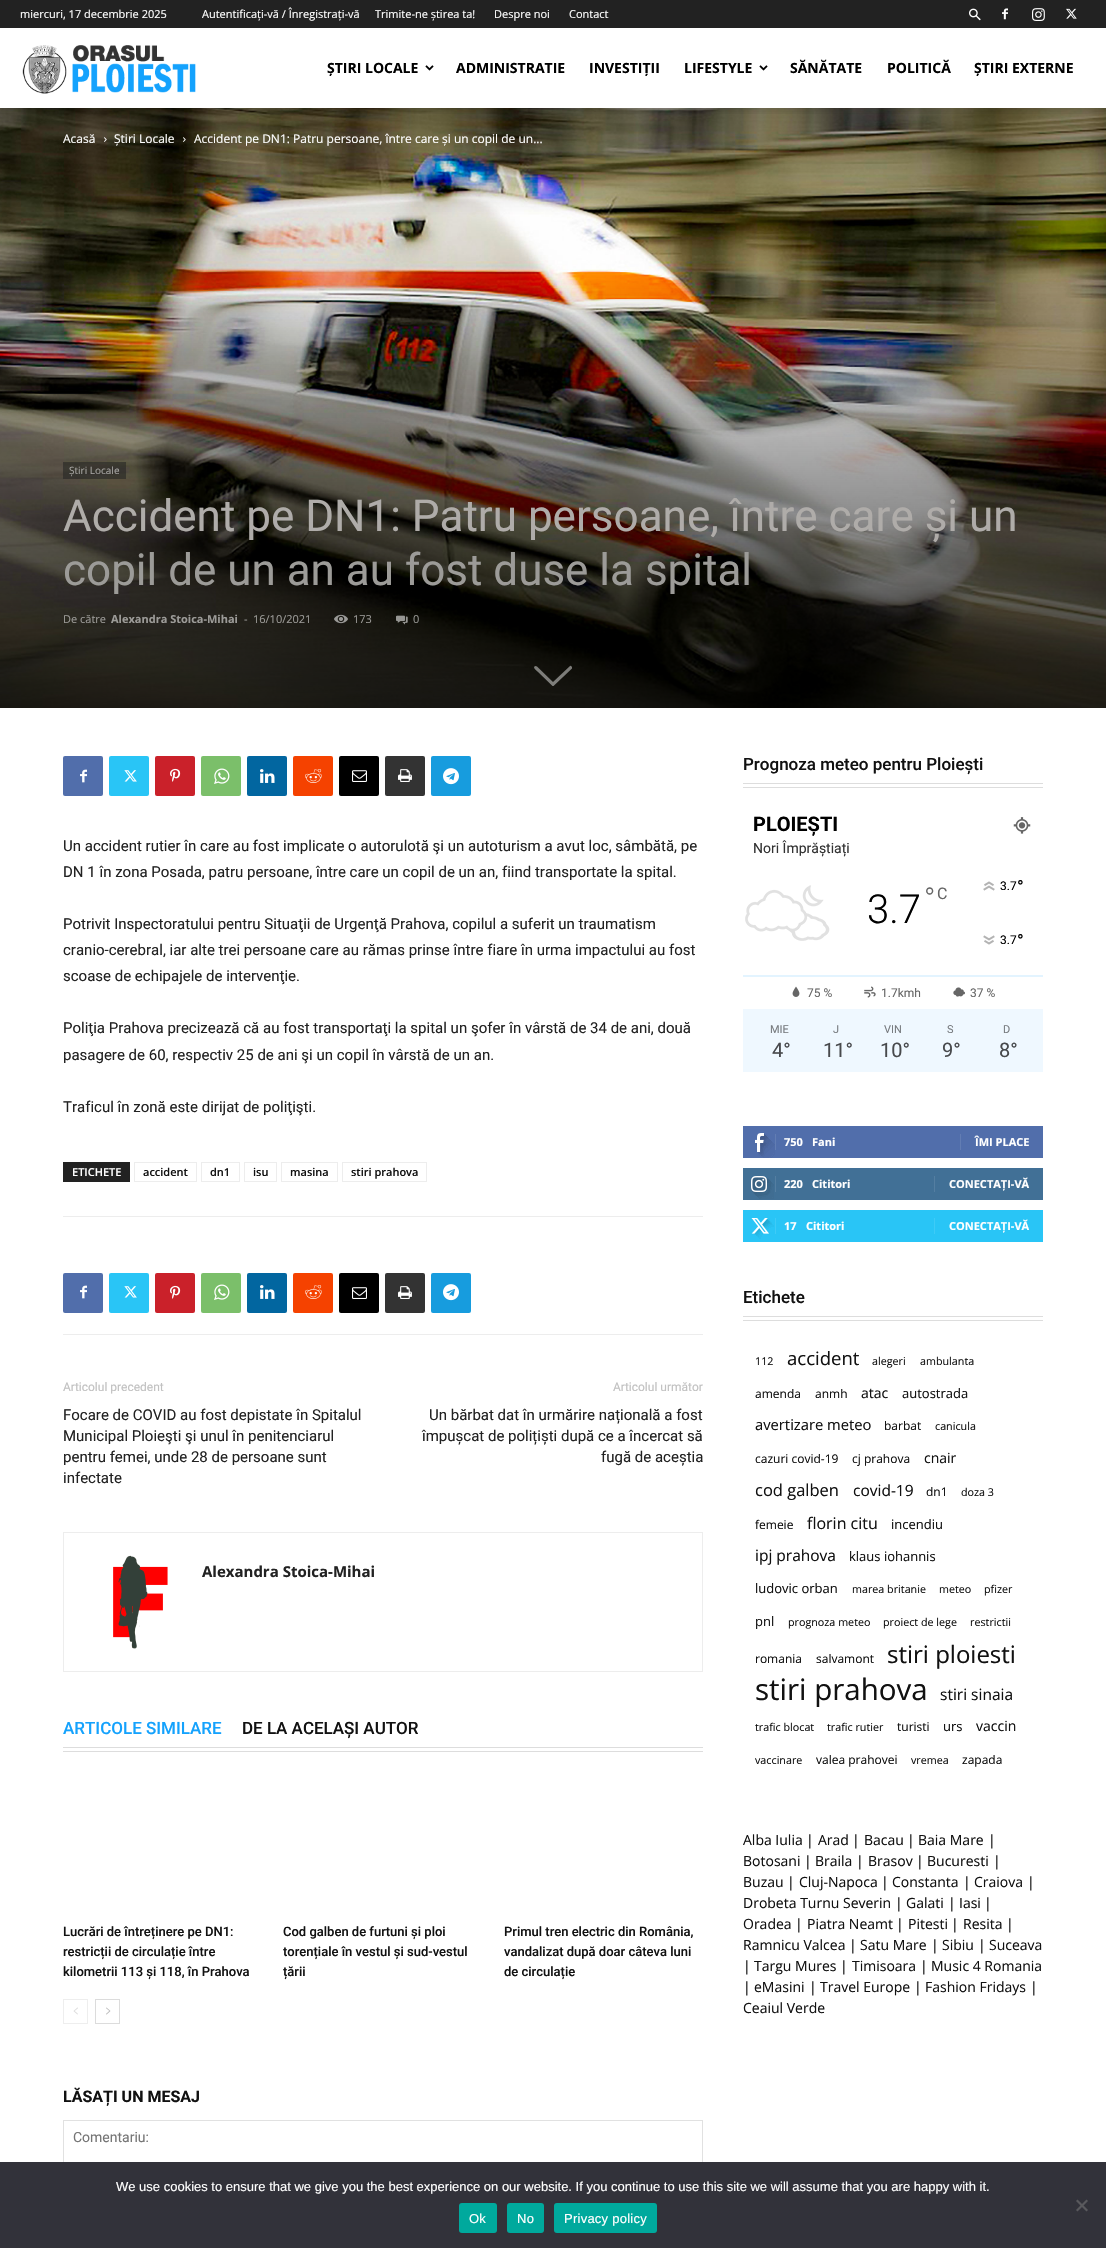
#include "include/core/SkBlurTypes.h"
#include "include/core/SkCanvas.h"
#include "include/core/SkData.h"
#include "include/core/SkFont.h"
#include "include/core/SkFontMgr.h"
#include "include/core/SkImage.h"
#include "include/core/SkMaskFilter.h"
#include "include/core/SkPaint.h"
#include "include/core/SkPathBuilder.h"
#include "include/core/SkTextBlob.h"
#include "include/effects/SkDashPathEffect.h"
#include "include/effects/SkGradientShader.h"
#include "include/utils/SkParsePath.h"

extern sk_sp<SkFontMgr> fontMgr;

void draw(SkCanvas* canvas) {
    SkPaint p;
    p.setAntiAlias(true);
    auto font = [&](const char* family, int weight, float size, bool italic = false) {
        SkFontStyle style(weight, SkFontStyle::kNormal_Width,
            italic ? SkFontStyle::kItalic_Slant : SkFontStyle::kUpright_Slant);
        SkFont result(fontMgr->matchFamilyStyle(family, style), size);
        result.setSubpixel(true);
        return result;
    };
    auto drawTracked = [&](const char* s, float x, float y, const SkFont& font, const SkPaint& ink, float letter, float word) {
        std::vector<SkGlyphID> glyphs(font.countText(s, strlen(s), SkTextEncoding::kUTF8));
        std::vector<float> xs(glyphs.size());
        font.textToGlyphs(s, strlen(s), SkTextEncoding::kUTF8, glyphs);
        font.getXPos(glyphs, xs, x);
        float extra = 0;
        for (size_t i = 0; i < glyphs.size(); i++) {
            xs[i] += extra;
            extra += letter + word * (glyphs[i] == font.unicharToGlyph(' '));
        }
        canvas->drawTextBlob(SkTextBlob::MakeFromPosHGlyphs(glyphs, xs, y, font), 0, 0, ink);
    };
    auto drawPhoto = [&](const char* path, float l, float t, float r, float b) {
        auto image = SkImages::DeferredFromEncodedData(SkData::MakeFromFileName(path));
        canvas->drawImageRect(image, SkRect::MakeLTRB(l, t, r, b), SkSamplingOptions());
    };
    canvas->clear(0xFFFFFFFF);
    p.setColor(0xFF222222);
    canvas->drawRect(SkRect::MakeLTRB(0, 0, 1106, 28), p);
    auto font1 = font("Open Sans", 400, 11);
    p.setColor(0xFFFFFFFF);
    {
        const struct { const char* s; float x, y; } items[] = {
            {"miercuri, 17 decembrie 2025", 20, 18},
            {"Autentificați-vă / Înregistrați-vă", 202, 18},
            {"Trimite-ne știrea ta!", 375, 18},
            {"Despre noi", 494, 18},
            {"Contact", 569, 18},
        };
        for (auto [s, x, y] : items) {
            canvas->drawString(s, x, y, font1, p);
        }
    }
    drawPhoto("media/1.png", 969, 8, 981, 21);
    drawPhoto("media/2.png", 1002, 8, 1008, 20);
    drawPhoto("media/3.png", 1032, 8, 1045, 21);
    drawPhoto("media/4.png", 1066, 8, 1077, 19);
    drawPhoto("media/5.png", 22, 45, 196, 94);
    auto font2 = font("Open Sans", 700, 14);
    p.setColor(0xFF000000);
    canvas->drawString("ȘTIRI LOCALE", 327, 73, font2, p);
    drawPhoto("media/6.png", 425, 65, 434, 71);
    {
        const struct { const char* s; float x, y; } items[] = {
            {"ADMINISTRATIE", 456, 73},
            {"INVESTIȚII", 589, 73},
            {"LIFESTYLE", 684, 73},
        };
        for (auto [s, x, y] : items) {
            canvas->drawString(s, x, y, font2, p);
        }
    }
    drawPhoto("media/6.png", 759, 65, 768, 71);
    {
        const struct { const char* s; float x, y; } items[] = {
            {"SĂNĂTATE", 790, 73},
            {"POLITICĂ", 887, 73},
            {"ȘTIRI EXTERNE", 974, 73},
        };
        for (auto [s, x, y] : items) {
            canvas->drawString(s, x, y, font2, p);
        }
    }
    drawPhoto("media/8.png", 0, 108, 1106, 708);
    drawPhoto("media/7.png", 0, 108, 1106, 114);
    auto font3 = font("Open Sans", 400, 12);
    p.setColor(0xFFFFFFFF);
    canvas->drawString("Acasă", 63, 143, font3, p);
    drawPhoto("media/9.png", 104, 137, 107, 142);
    canvas->drawString("Știri Locale", 114, 143, font3, p);
    drawPhoto("media/10.png", 183, 137, 186, 142);
    canvas->drawString("Accident pe DN1: Patru persoane, între care și un copil de un...", 194, 143, font3, p);
    p.setColor(0x8F222222);
    canvas->drawRect(SkRect::MakeLTRB(63, 462, 126, 479), p);
    auto font4 = font("Open Sans", 400, 10);
    p.setColor(0xFFA7A6A3);
    canvas->drawString("Știri Locale", 69, 474, font4, p);
    auto font5 = font("Roboto", 400, 44);
    p.setColor(0xFFAFACA9);
    canvas->drawString("Accident pe DN1: Patru persoane, între care și un", 63, 531, font5, p);
    p.setColor(0xFF9C9B98);
    canvas->drawString("copil de un an au fost duse la spital", 63, 585, font5, p);
    canvas->drawString("De către", 63, 623, font1, p);
    auto font6 = font("Open Sans", 700, 11);
    canvas->drawString("Alexandra Stoica-Mihai", 111, 623, font6, p);
    canvas->drawString("-", 244, 623, font1, p);
    canvas->drawString("16/10/2021", 253, 623, font1, p);
    drawPhoto("media/11.png", 334, 614, 348, 624);
    canvas->drawString("173", 353, 623, font1, p);
    drawPhoto("media/12.png", 396, 615, 408, 625);
    p.setColor(0xFF959592);
    canvas->drawString("0", 413, 623, font1, p);
    p.setColor(0x73FFFFFF);
    canvas->drawPath(SkPathBuilder().moveTo(537, 666.5f).lineTo(553, 682).lineTo(570, 666).cubicTo(570.5f, 665.5f, 572, 666.5f, 572, 667.5f).lineTo(572, 668.5f).lineTo(553.5f, 686).lineTo(552.5f, 686).lineTo(537.5f, 671.5f).cubicTo(537, 671, 531.5f, 667, 535.5f, 666).close().detach(), p);
    p.setColor(0xFF516EAB);
    canvas->drawRoundRect(SkRect::MakeLTRB(63, 756, 103, 796), 2, 2, p);
    drawPhoto("media/13.png", 80, 769, 87, 783);
    p.setColor(0xFF29C5F6);
    canvas->drawRoundRect(SkRect::MakeLTRB(109, 756, 149, 796), 2, 2, p);
    drawPhoto("media/14.png", 124, 770, 137, 782);
    p.setColor(0xFFCA212A);
    canvas->drawRoundRect(SkRect::MakeLTRB(155, 756, 195, 796), 2, 2, p);
    drawPhoto("media/15.png", 170, 768, 181, 782);
    p.setColor(0xFF7BBF6A);
    canvas->drawRoundRect(SkRect::MakeLTRB(201, 756, 241, 796), 2, 2, p);
    drawPhoto("media/16.png", 214, 768, 230, 784);
    p.setColor(0xFF0266A0);
    canvas->drawRoundRect(SkRect::MakeLTRB(247, 756, 287, 796), 2, 2, p);
    drawPhoto("media/17.png", 260, 769, 275, 783);
    p.setColor(0xFFF54200);
    canvas->drawRoundRect(SkRect::MakeLTRB(293, 756, 333, 796), 2, 2, p);
    drawPhoto("media/18.png", 305, 769, 322, 783);
    p.setColor(0xFF000000);
    canvas->drawRoundRect(SkRect::MakeLTRB(339, 756, 379, 796), 2, 2, p);
    drawPhoto("media/19.png", 352, 770, 367, 782);
    p.setColor(0xFF333333);
    canvas->drawRoundRect(SkRect::MakeLTRB(385, 756, 425, 796), 2, 2, p);
    drawPhoto("media/20.png", 398, 769, 412, 782);
    p.setColor(0xFF179CDE);
    canvas->drawRoundRect(SkRect::MakeLTRB(431, 756, 471, 796), 2, 2, p);
    drawPhoto("media/21.png", 443, 768, 459, 785);
    auto font7 = font("Roboto", 400, 15);
    p.setColor(0xFF222222);
    {
        const struct { const char* s; float x, y; } items[] = {
            {"Un accident rutier în care au fost implicate o autorulotă şi un autoturism a avut loc, sâmbătă, pe", 63, 851},
            {"DN 1 în zona Posada, patru persoane, între care un copil de un an, fiind transportate la spital.", 63, 877},
            {"Potrivit Inspectoratului pentru Situaţii de Urgenţă Prahova, copilul a suferit un traumatism", 63, 929},
            {"cranio-cerebral, iar alte trei persoane care au rămas prinse între fiare în urma impactului au fost", 63, 955},
            {"scoase de echipajele de intervenţie.", 63, 981},
            {"Poliţia Prahova precizează că au fost transportaţi la spital un şofer în vârstă de 34 de ani, două", 63, 1033},
            {"pasagere de 60, respectiv 25 de ani şi un copil în vârstă de un an.", 63, 1060},
            {"Traficul în zonă este dirijat de poliţişti.", 63, 1112},
        };
        for (auto [s, x, y] : items) {
            canvas->drawString(s, x, y, font7, p);
        }
    }
    canvas->drawRect(SkRect::MakeLTRB(63, 1162, 130, 1182), p);
    auto font8 = font("Open Sans", 600, 11);
    p.setColor(0xFFFFFFFF);
    canvas->drawString("ETICHETE", 72, 1176, font8, p);
    p.setStyle(SkPaint::kStroke_Style);
    p.setStrokeWidth(1);
    p.setColor(0xFFEDEDED);
    canvas->drawRect(SkRect::MakeLTRB(134.5f, 1162.5f, 196.5f, 1181.5f), p);
    p.setStyle(SkPaint::kFill_Style);
    p.setColor(0xFF111111);
    canvas->drawString("accident", 143, 1176, font8, p);
    p.setStyle(SkPaint::kStroke_Style);
    p.setColor(0xFFEDEDED);
    canvas->drawRect(SkRect::MakeLTRB(201.5f, 1162.5f, 239.5f, 1181.5f), p);
    p.setStyle(SkPaint::kFill_Style);
    p.setColor(0xFF111111);
    canvas->drawString("dn1", 210, 1176, font8, p);
    p.setStyle(SkPaint::kStroke_Style);
    p.setColor(0xFFEDEDED);
    canvas->drawRect(SkRect::MakeLTRB(244.5f, 1162.5f, 276.5f, 1181.5f), p);
    p.setStyle(SkPaint::kFill_Style);
    p.setColor(0xFF111111);
    canvas->drawString("isu", 253, 1176, font8, p);
    p.setStyle(SkPaint::kStroke_Style);
    p.setColor(0xFFEDEDED);
    canvas->drawRect(SkRect::MakeLTRB(281.5f, 1162.5f, 337.5f, 1181.5f), p);
    p.setStyle(SkPaint::kFill_Style);
    p.setColor(0xFF111111);
    canvas->drawString("masina", 290, 1176, font8, p);
    p.setStyle(SkPaint::kStroke_Style);
    p.setColor(0xFFEDEDED);
    canvas->drawRect(SkRect::MakeLTRB(342.5f, 1162.5f, 426.5f, 1181.5f), p);
    p.setStyle(SkPaint::kFill_Style);
    p.setColor(0xFF111111);
    canvas->drawString("stiri prahova", 351, 1176, font8, p);
    p.setColor(0xFFEDEDED);
    canvas->drawRect(SkRect::MakeLTRB(63, 1216, 703, 1217), p);
    canvas->drawRect(SkRect::MakeLTRB(63, 1334, 703, 1335), p);
    p.setColor(0xFF516EAB);
    canvas->drawRoundRect(SkRect::MakeLTRB(63, 1273, 103, 1313), 2, 2, p);
    drawPhoto("media/13.png", 80, 1285, 87, 1299);
    p.setColor(0xFF29C5F6);
    canvas->drawRoundRect(SkRect::MakeLTRB(109, 1273, 149, 1313), 2, 2, p);
    drawPhoto("media/14.png", 124, 1286, 137, 1298);
    p.setColor(0xFFCA212A);
    canvas->drawRoundRect(SkRect::MakeLTRB(155, 1273, 195, 1313), 2, 2, p);
    drawPhoto("media/15.png", 170, 1285, 181, 1299);
    p.setColor(0xFF7BBF6A);
    canvas->drawRoundRect(SkRect::MakeLTRB(201, 1273, 241, 1313), 2, 2, p);
    drawPhoto("media/16.png", 214, 1284, 230, 1300);
    p.setColor(0xFF0266A0);
    canvas->drawRoundRect(SkRect::MakeLTRB(247, 1273, 287, 1313), 2, 2, p);
    drawPhoto("media/17.png", 260, 1285, 275, 1299);
    p.setColor(0xFFF54200);
    canvas->drawRoundRect(SkRect::MakeLTRB(293, 1273, 333, 1313), 2, 2, p);
    drawPhoto("media/18.png", 305, 1285, 322, 1299);
    p.setColor(0xFF000000);
    canvas->drawRoundRect(SkRect::MakeLTRB(339, 1273, 379, 1313), 2, 2, p);
    drawPhoto("media/19.png", 352, 1287, 367, 1299);
    p.setColor(0xFF333333);
    canvas->drawRoundRect(SkRect::MakeLTRB(385, 1273, 425, 1313), 2, 2, p);
    drawPhoto("media/20.png", 398, 1286, 412, 1299);
    p.setColor(0xFF179CDE);
    canvas->drawRoundRect(SkRect::MakeLTRB(431, 1273, 471, 1313), 2, 2, p);
    drawPhoto("media/21.png", 443, 1284, 459, 1301);
    auto font9 = font("Roboto", 400, 12);
    p.setColor(0xFFC1C1C1);
    canvas->drawString("Articolul precedent", 63, 1391, font9, p);
    p.setColor(0xFF222222);
    {
        const struct { const char* s; float x, y; } items[] = {
            {"Focare de COVID au fost depistate în Spitalul", 63, 1420},
            {"Municipal Ploieşti şi unul în penitenciarul", 63, 1441},
            {"pentru femei, unde 28 de persoane sunt", 63, 1462},
            {"infectate", 63, 1483},
        };
        for (auto [s, x, y] : items) {
            canvas->drawString(s, x, y, font7, p);
        }
    }
    p.setColor(0xFFC1C1C1);
    canvas->drawString("Articolul următor", 613, 1391, font9, p);
    p.setColor(0xFF222222);
    {
        const struct { const char* s; float x, y; } items[] = {
            {"Un bărbat dat în urmărire națională a fost", 429, 1420},
            {"împușcat de polițiști după ce a încercat să", 422, 1441},
            {"fugă de aceștia", 601, 1462},
        };
        for (auto [s, x, y] : items) {
            canvas->drawString(s, x, y, font7, p);
        }
    }
    p.setStyle(SkPaint::kStroke_Style);
    p.setColor(0xFFEDEDED);
    canvas->drawRect(SkRect::MakeLTRB(63.5f, 1532.5f, 702.5f, 1671.5f), p);
    drawPhoto("media/22.png", 113, 1555, 168, 1649);
    auto font10 = font("Open Sans", 700, 15);
    p.setStyle(SkPaint::kFill_Style);
    p.setColor(0xFF222222);
    canvas->drawString("Alexandra Stoica-Mihai", 202, 1577, font10, p);
    auto font11 = font("Roboto", 500, 17);
    p.setColor(0xFF14A2FD);
    canvas->drawString("ARTICOLE SIMILARE", 63, 1734, font11, p);
    p.setColor(0xFF111111);
    canvas->drawString("DE LA ACELAȘI AUTOR", 242, 1734, font11, p);
    p.setColor(0xFFDDDDDD);
    canvas->drawRect(SkRect::MakeLTRB(63, 1747, 703, 1748), p);
    canvas->drawRect(SkRect::MakeLTRB(63, 1751, 703, 1752), p);
    auto font12 = font("Roboto", 500, 13);
    p.setColor(0xFF111111);
    {
        const struct { const char* s; float x, y; } items[] = {
            {"Lucrări de întreținere pe DN1:", 63, 1936},
            {"restricții de circulație între", 63, 1956},
            {"kilometrii 113 și 118, în Prahova", 63, 1976},
            {"Cod galben de furtuni și ploi", 283, 1936},
            {"torențiale în vestul și sud-vestul", 283, 1956},
            {"țării", 283, 1976},
            {"Primul tren electric din România,", 504, 1936},
            {"vandalizat după doar câteva luni", 504, 1956},
            {"de circulație", 504, 1976},
        };
        for (auto [s, x, y] : items) {
            canvas->drawString(s, x, y, font12, p);
        }
    }
    p.setStyle(SkPaint::kStroke_Style);
    p.setColor(0xFFEEEEEE);
    canvas->drawRect(SkRect::MakeLTRB(63.5f, 1999.5f, 87.5f, 2023.5f), p);
    drawPhoto("media/23.png", 73, 2007, 78, 2015);
    p.setColor(0xFFDCDCDC);
    canvas->drawRect(SkRect::MakeLTRB(95.5f, 1999.5f, 119.5f, 2023.5f), p);
    drawPhoto("media/24.png", 106, 2007, 111, 2015);
    auto font13 = font("Roboto", 700, 16);
    p.setStyle(SkPaint::kFill_Style);
    p.setColor(0xFF111111);
    canvas->drawString("LĂSAȚI UN MESAJ", 63, 2102, font13, p);
    p.setStyle(SkPaint::kStroke_Style);
    p.setColor(0xFFE1E1E1);
    canvas->drawRect(SkRect::MakeLTRB(63.5f, 2120.5f, 702.5f, 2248.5f), p);
    auto font14 = font("Roboto", 400, 14);
    p.setStyle(SkPaint::kFill_Style);
    p.setColor(0xFF757575);
    canvas->drawString("Comentariu:", 73, 2142, font14, p);
    p.setColor(0xFF111111);
    canvas->drawString("Prognoza meteo pentru Ploiești", 743, 770, font11, p);
    p.setColor(0xFFDDDDDD);
    canvas->drawRect(SkRect::MakeLTRB(743, 783, 1043, 784), p);
    canvas->drawRect(SkRect::MakeLTRB(743, 787, 1043, 788), p);
    auto font15 = font("Roboto", 700, 20);
    p.setColor(0xFF000000);
    canvas->drawString("PLOIEȘTI", 753, 831, font15, p);
    drawPhoto("media/25.png", 1013, 817, 1031, 834);
    p.setColor(0xFF333333);
    canvas->drawString("Nori Împrăștiați", 753, 853, font14, p);
    drawPhoto("media/26.png", 745, 885, 830, 941);
    auto font16 = font("Roboto", 300, 40);
    p.setColor(0xFF000000);
    canvas->drawString("3.7", 867, 923, font16, p);
    auto font17 = font("Roboto", 300, 30);
    p.setColor(0xFF666666);
    canvas->drawString("°", 924, 909, font17, p);
    auto font18 = font("Roboto", 400, 16);
    canvas->drawString("C", 937, 899, font18, p);
    drawPhoto("media/27.png", 983, 881, 995, 891);
    p.setColor(0xFF000000);
    canvas->drawString("3.7", 1000, 890, font9, p);
    auto font19 = font("Roboto", 400, 18);
    canvas->drawString("°", 1017, 893, font19, p);
    drawPhoto("media/28.png", 983, 935, 995, 945);
    canvas->drawString("3.7", 1000, 944, font9, p);
    canvas->drawString("°", 1017, 947, font19, p);
    p.setColor(0xFFE3F4FF);
    canvas->drawRect(SkRect::MakeLTRB(743, 975, 1043, 977), p);
    drawPhoto("media/29.png", 792, 986, 800, 997);
    p.setColor(0xFF666666);
    canvas->drawString("75 %", 807, 997, font9, p);
    drawPhoto("media/30.png", 864, 986, 876, 998);
    canvas->drawString("1.7kmh", 881, 997, font9, p);
    drawPhoto("media/31.png", 953, 987, 965, 997);
    canvas->drawString("37 %", 970, 997, font9, p);
    p.setColor(0xFFEFF8FF);
    canvas->drawRect(SkRect::MakeLTRB(743, 1009, 1043, 1072), p);
    auto font20 = font("Roboto", 400, 11);
    p.setColor(0xFF787C80);
    canvas->drawString("MIE", 770, 1033, font20, p);
    auto font21 = font("Roboto", 400, 20);
    p.setColor(0xFF484A4D);
    canvas->drawString("4°", 772, 1057, font21, p);
    p.setColor(0xFF787C80);
    canvas->drawString("J", 833, 1033, font20, p);
    p.setColor(0xFF484A4D);
    canvas->drawString("11°", 823, 1057, font21, p);
    p.setColor(0xFF787C80);
    canvas->drawString("VIN", 884, 1033, font20, p);
    p.setColor(0xFF484A4D);
    canvas->drawString("10°", 880, 1057, font21, p);
    p.setColor(0xFF787C80);
    canvas->drawString("S", 947, 1033, font20, p);
    p.setColor(0xFF484A4D);
    canvas->drawString("9°", 942, 1057, font21, p);
    p.setColor(0xFF787C80);
    canvas->drawString("D", 1003, 1033, font20, p);
    p.setColor(0xFF484A4D);
    canvas->drawString("8°", 999, 1057, font21, p);
    p.setColor(0xFF516EAB);
    canvas->drawRect(SkRect::MakeLTRB(743, 1126, 1043, 1158), p);
    drawPhoto("media/32.png", 755, 1133, 775, 1158);
    p.setColor(0xFF627DB3);
    canvas->drawRect(SkRect::MakeLTRB(775, 1134, 776, 1150), p);
    p.setColor(0xFFFFFFFF);
    canvas->drawString("750", 784, 1146, font6, p);
    canvas->drawString("Fani", 812, 1146, font6, p);
    p.setColor(0xFF627DB3);
    canvas->drawRect(SkRect::MakeLTRB(960, 1134, 961, 1150), p);
    p.setColor(0xFFFFFFFF);
    canvas->drawString("ÎMI PLACE", 975, 1146, font6, p);
    p.setColor(0xFF417096);
    canvas->drawRect(SkRect::MakeLTRB(743, 1168, 1043, 1200), p);
    drawPhoto("media/33.png", 751, 1176, 774, 1199);
    p.setColor(0xFF547EA1);
    canvas->drawRect(SkRect::MakeLTRB(775, 1176, 776, 1192), p);
    p.setColor(0xFFFFFFFF);
    canvas->drawString("220", 784, 1188, font6, p);
    canvas->drawString("Cititori", 812, 1188, font6, p);
    p.setColor(0xFF547EA1);
    canvas->drawRect(SkRect::MakeLTRB(934, 1176, 935, 1192), p);
    p.setColor(0xFFFFFFFF);
    canvas->drawString("CONECTAȚI-VĂ", 949, 1188, font6, p);
    p.setColor(0xFF29C5F6);
    canvas->drawRect(SkRect::MakeLTRB(743, 1210, 1043, 1242), p);
    drawPhoto("media/34.png", 751, 1218, 774, 1239);
    p.setColor(0xFF3ECBF7);
    canvas->drawRect(SkRect::MakeLTRB(775, 1218, 776, 1234), p);
    p.setColor(0xFFFFFFFF);
    canvas->drawString("17", 784, 1230, font6, p);
    canvas->drawString("Cititori", 806, 1230, font6, p);
    p.setColor(0xFF3ECBF7);
    canvas->drawRect(SkRect::MakeLTRB(934, 1218, 935, 1234), p);
    p.setColor(0xFFFFFFFF);
    canvas->drawString("CONECTAȚI-VĂ", 949, 1230, font6, p);
    p.setColor(0xFF111111);
    canvas->drawString("Etichete", 743, 1303, font11, p);
    p.setColor(0xFFDDDDDD);
    canvas->drawRect(SkRect::MakeLTRB(743, 1316, 1043, 1317), p);
    canvas->drawRect(SkRect::MakeLTRB(743, 1320, 1043, 1321), p);
    auto font22 = font("Open Sans", 400, 10.75f);
    p.setColor(0xFF111111);
    canvas->drawString("112", 755, 1365, font22, p);
    auto font23 = font("Open Sans", 400, 18.5f);
    canvas->drawString("accident", 787, 1365, font23, p);
    canvas->drawString("alegeri", 872, 1365, font22, p);
    canvas->drawString("ambulanta", 920, 1365, font22, p);
    canvas->drawString("amenda", 755, 1398, font3, p);
    canvas->drawString("anmh", 815, 1398, font3, p);
    auto font24 = font("Open Sans", 400, 14);
    canvas->drawString("atac", 861, 1398, font24, p);
    auto font25 = font("Open Sans", 400, 13);
    canvas->drawString("autostrada", 902, 1398, font25, p);
    auto font26 = font("Open Sans", 400, 14.75f);
    canvas->drawString("avertizare meteo", 755, 1430, font26, p);
    canvas->drawString("barbat", 884, 1430, font3, p);
    canvas->drawString("canicula", 935, 1430, font22, p);
    canvas->drawString("cazuri covid-19", 755, 1463, font3, p);
    canvas->drawString("cj prahova", 852, 1463, font3, p);
    canvas->drawString("cnair", 924, 1463, font24, p);
    auto font27 = font("Open Sans", 400, 16.5f);
    canvas->drawString("cod galben", 755, 1496, font27, p);
    auto font28 = font("Open Sans", 400, 15.5f);
    canvas->drawString("covid-19", 853, 1496, font28, p);
    canvas->drawString("dn1", 926, 1496, font3, p);
    canvas->drawString("doza 3", 961, 1496, font22, p);
    canvas->drawString("femeie", 755, 1529, font3, p);
    auto font29 = font("Open Sans", 400, 16);
    canvas->drawString("florin citu", 807, 1529, font29, p);
    canvas->drawString("incendiu", 891, 1529, font25, p);
    canvas->drawString("ipj prahova", 755, 1561, font28, p);
    canvas->drawString("klaus iohannis", 849, 1561, font25, p);
    canvas->drawString("ludovic orban", 755, 1593, font25, p);
    {
        const struct { const char* s; float x, y; } items[] = {
            {"marea britanie", 852, 1593},
            {"meteo", 939, 1593},
            {"pfizer", 984, 1593},
        };
        for (auto [s, x, y] : items) {
            canvas->drawString(s, x, y, font22, p);
        }
    }
    canvas->drawString("pnl", 755, 1626, font25, p);
    {
        const struct { const char* s; float x, y; } items[] = {
            {"prognoza meteo", 788, 1626},
            {"proiect de lege", 883, 1626},
            {"restrictii", 970, 1626},
        };
        for (auto [s, x, y] : items) {
            canvas->drawString(s, x, y, font22, p);
        }
    }
    canvas->drawString("romania", 755, 1663, font3, p);
    canvas->drawString("salvamont", 816, 1663, font3, p);
    auto font30 = font("Open Sans", 400, 24);
    canvas->drawString("stiri ploiesti", 887, 1663, font30, p);
    auto font31 = font("Open Sans", 400, 29.5f);
    canvas->drawString("stiri prahova", 755, 1700, font31, p);
    canvas->drawString("stiri sinaia", 940, 1700, font28, p);
    canvas->drawString("trafic blocat", 755, 1731, font22, p);
    canvas->drawString("trafic rutier", 827, 1731, font22, p);
    canvas->drawString("turisti", 897, 1731, font3, p);
    canvas->drawString("urs", 943, 1731, font25, p);
    canvas->drawString("vaccin", 976, 1731, font24, p);
    canvas->drawString("vaccinare", 755, 1764, font22, p);
    canvas->drawString("valea prahovei", 816, 1764, font3, p);
    canvas->drawString("vremea", 911, 1764, font22, p);
    canvas->drawString("zapada", 962, 1764, font3, p);
    canvas->drawString("Alba Iulia", 743, 1845, font24, p);
    p.setColor(0xFF000000);
    canvas->drawString("|", 806, 1845, font24, p);
    p.setColor(0xFF111111);
    canvas->drawString("Arad", 818, 1845, font24, p);
    p.setColor(0xFF000000);
    canvas->drawString("|", 852, 1845, font24, p);
    p.setColor(0xFF111111);
    canvas->drawString("Bacau", 864, 1845, font24, p);
    p.setColor(0xFF000000);
    canvas->drawString("|", 907, 1845, font24, p);
    p.setColor(0xFF111111);
    canvas->drawString("Baia Mare", 918, 1845, font24, p);
    p.setColor(0xFF000000);
    canvas->drawString("|", 988, 1845, font24, p);
    p.setColor(0xFF111111);
    canvas->drawString("Botosani", 743, 1866, font24, p);
    p.setColor(0xFF000000);
    canvas->drawString("|", 804, 1866, font24, p);
    p.setColor(0xFF111111);
    canvas->drawString("Braila", 815, 1866, font24, p);
    p.setColor(0xFF000000);
    canvas->drawString("|", 856, 1866, font24, p);
    p.setColor(0xFF111111);
    canvas->drawString("Brasov", 868, 1866, font24, p);
    p.setColor(0xFF000000);
    canvas->drawString("|", 916, 1866, font24, p);
    p.setColor(0xFF111111);
    canvas->drawString("Bucuresti", 927, 1866, font24, p);
    p.setColor(0xFF000000);
    canvas->drawString("|", 993, 1866, font24, p);
    p.setColor(0xFF111111);
    canvas->drawString("Buzau", 743, 1887, font24, p);
    p.setColor(0xFF000000);
    canvas->drawString("|", 787, 1887, font24, p);
    p.setColor(0xFF111111);
    canvas->drawString("Cluj-Napoca", 799, 1887, font24, p);
    p.setColor(0xFF000000);
    canvas->drawString("|", 881, 1887, font24, p);
    p.setColor(0xFF111111);
    canvas->drawString("Constanta", 892, 1887, font24, p);
    p.setColor(0xFF000000);
    canvas->drawString("|", 963, 1887, font24, p);
    p.setColor(0xFF111111);
    canvas->drawString("Craiova", 974, 1887, font24, p);
    p.setColor(0xFF000000);
    canvas->drawString("|", 1027, 1887, font24, p);
    p.setColor(0xFF111111);
    canvas->drawString("Drobeta Turnu Severin", 743, 1908, font24, p);
    p.setColor(0xFF000000);
    canvas->drawString("|", 895, 1908, font24, p);
    p.setColor(0xFF111111);
    canvas->drawString("Galati", 906, 1908, font24, p);
    p.setColor(0xFF000000);
    canvas->drawString("|", 948, 1908, font24, p);
    p.setColor(0xFF111111);
    canvas->drawString("Iasi", 959, 1908, font24, p);
    p.setColor(0xFF000000);
    canvas->drawString("|", 984, 1908, font24, p);
    p.setColor(0xFF111111);
    canvas->drawString("Oradea", 743, 1929, font24, p);
    p.setColor(0xFF000000);
    canvas->drawString("|", 795, 1929, font24, p);
    p.setColor(0xFF111111);
    canvas->drawString("Piatra Neamt", 807, 1929, font24, p);
    p.setColor(0xFF000000);
    canvas->drawString("|", 896, 1929, font24, p);
    p.setColor(0xFF111111);
    canvas->drawString("Pitesti", 908, 1929, font24, p);
    p.setColor(0xFF000000);
    canvas->drawString("|", 951, 1929, font24, p);
    p.setColor(0xFF111111);
    canvas->drawString("Resita", 963, 1929, font24, p);
    p.setColor(0xFF000000);
    canvas->drawString("|", 1006, 1929, font24, p);
    p.setColor(0xFF111111);
    canvas->drawString("Ramnicu Valcea", 743, 1950, font24, p);
    p.setColor(0xFF000000);
    canvas->drawString("|", 849, 1950, font24, p);
    p.setColor(0xFF111111);
    canvas->drawString("Satu Mare", 860, 1950, font24, p);
    p.setColor(0xFF000000);
    canvas->drawString("|", 931, 1950, font24, p);
    p.setColor(0xFF111111);
    canvas->drawString("Sibiu", 942, 1950, font24, p);
    p.setColor(0xFF000000);
    canvas->drawString("|", 978, 1950, font24, p);
    p.setColor(0xFF111111);
    canvas->drawString("Suceava", 989, 1950, font24, p);
    p.setColor(0xFF000000);
    canvas->drawString("|", 743, 1971, font24, p);
    p.setColor(0xFF111111);
    canvas->drawString("Targu Mures", 754, 1971, font24, p);
    p.setColor(0xFF000000);
    canvas->drawString("|", 840, 1971, font24, p);
    p.setColor(0xFF111111);
    canvas->drawString("Timisoara", 852, 1971, font24, p);
    p.setColor(0xFF000000);
    canvas->drawString("|", 920, 1971, font24, p);
    p.setColor(0xFF111111);
    canvas->drawString("Music 4 Romania", 931, 1971, font24, p);
    p.setColor(0xFF000000);
    canvas->drawString("|", 743, 1992, font24, p);
    p.setColor(0xFF111111);
    canvas->drawString("eMasini", 754, 1992, font24, p);
    p.setColor(0xFF000000);
    canvas->drawString("|", 809, 1992, font24, p);
    p.setColor(0xFF111111);
    canvas->drawString("Travel Europe", 820, 1992, font24, p);
    p.setColor(0xFF000000);
    canvas->drawString("|", 914, 1992, font24, p);
    p.setColor(0xFF111111);
    canvas->drawString("Fashion Fridays", 925, 1992, font24, p);
    p.setColor(0xFF000000);
    canvas->drawString("|", 1030, 1992, font24, p);
    p.setColor(0xFF111111);
    canvas->drawString("Ceaiul Verde", 743, 2013, font24, p);
    p.setColor(0xFF32323A);
    canvas->drawRect(SkRect::MakeLTRB(0, 2162, 1106, 2248), p);
    auto font32 = font("Liberation Sans", 400, 13);
    p.setColor(0xFFFFFFFF);
    canvas->drawString("We use cookies to ensure that we give you the best experience on our website. If you continue to use this site we will assume that you are happy with it.", 116, 2191, font32, p);
    p.setColor(0xFF59595D);
    canvas->drawPath(SkPathBuilder().moveTo(1086.5f, 2199.5f).lineTo(1088, 2201).lineTo(1077.5f, 2211.5f).lineTo(1076, 2210).close().detach(), p);
    canvas->drawPath(SkPathBuilder().moveTo(1076, 2201).lineTo(1077.5f, 2199.5f).lineTo(1088, 2210).lineTo(1086.5f, 2211.5f).close().detach(), p);
    p.setColor(0xFF00A99D);
    canvas->drawRoundRect(SkRect::MakeLTRB(459, 2203, 497, 2233), 3, 3, p);
    p.setColor(0xFFFFFFFF);
    drawTracked("Ok", 469, 2223, font32, p, 0.25f, 0);
    p.setColor(0xFF00A99D);
    canvas->drawRoundRect(SkRect::MakeLTRB(507, 2203, 544, 2233), 3, 3, p);
    p.setColor(0xFFFFFFFF);
    drawTracked("No", 517, 2223, font32, p, 0.25f, 0);
    p.setColor(0xFF00A99D);
    canvas->drawRoundRect(SkRect::MakeLTRB(554, 2203, 657, 2233), 3, 3, p);
    p.setColor(0xFFFFFFFF);
    drawTracked("Privacy policy", 564, 2223, font32, p, 0.25f, 0);
}
